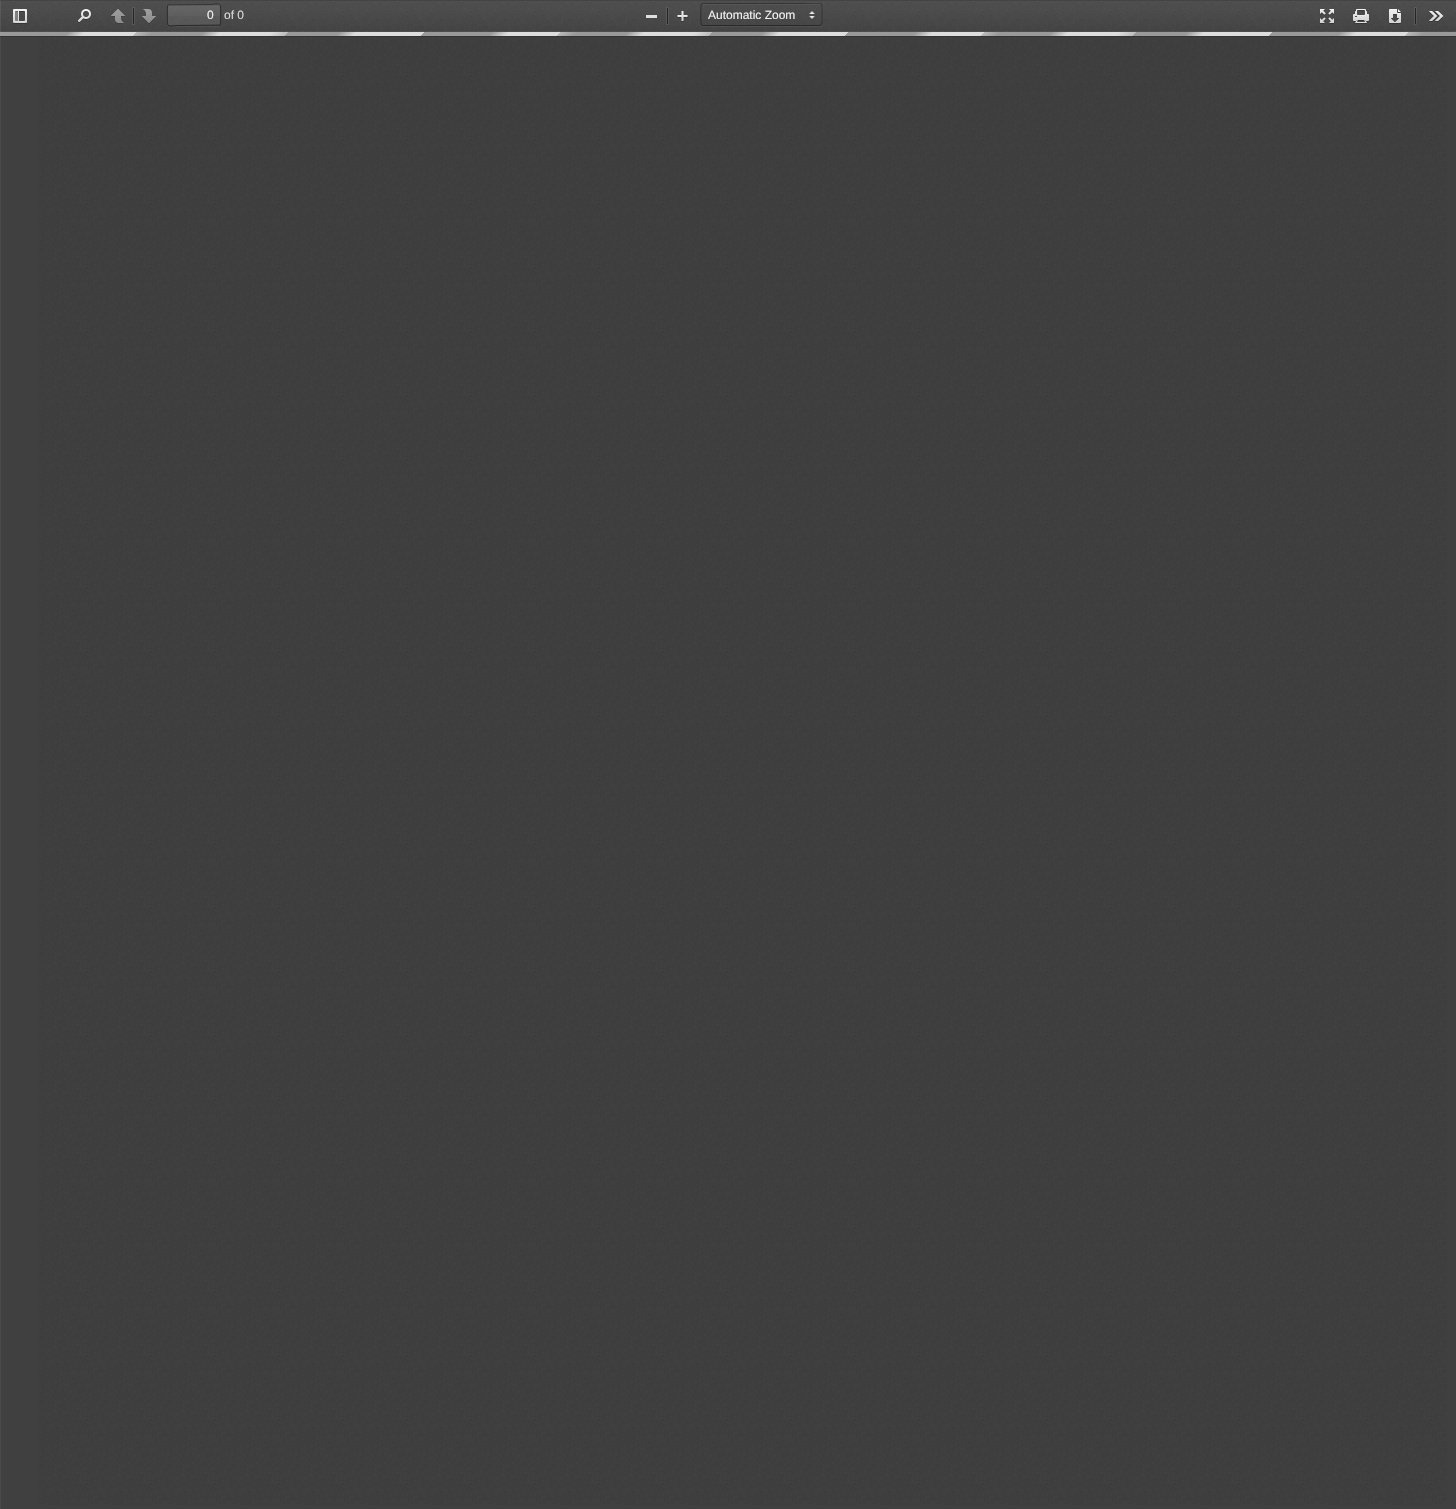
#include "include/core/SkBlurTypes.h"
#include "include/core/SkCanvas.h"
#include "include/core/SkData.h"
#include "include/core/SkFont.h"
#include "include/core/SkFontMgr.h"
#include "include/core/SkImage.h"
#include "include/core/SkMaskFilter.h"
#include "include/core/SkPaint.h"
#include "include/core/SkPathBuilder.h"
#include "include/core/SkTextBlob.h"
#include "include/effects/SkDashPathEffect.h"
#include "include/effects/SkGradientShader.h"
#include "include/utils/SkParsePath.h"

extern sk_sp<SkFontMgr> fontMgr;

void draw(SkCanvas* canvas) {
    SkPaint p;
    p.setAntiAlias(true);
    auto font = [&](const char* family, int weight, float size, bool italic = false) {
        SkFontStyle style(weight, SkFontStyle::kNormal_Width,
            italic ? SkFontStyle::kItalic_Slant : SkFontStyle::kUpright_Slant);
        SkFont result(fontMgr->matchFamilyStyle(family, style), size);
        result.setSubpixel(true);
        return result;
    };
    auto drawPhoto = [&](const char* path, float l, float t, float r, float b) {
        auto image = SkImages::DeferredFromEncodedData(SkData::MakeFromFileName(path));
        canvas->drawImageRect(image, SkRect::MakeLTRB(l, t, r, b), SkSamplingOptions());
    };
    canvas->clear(0xFF404040);
    drawPhoto("media/1.png", 38, 17, 1447, 1505);
    drawPhoto("media/2.png", 0, 0, 1456, 32);
    {
        const struct { float l, t, r, b; SkColor color; } items[] = {
            {0, 31, 1456, 32, 0x0DFFFFFF},
            {0, 0, 1456, 1, 0x26000000},
            {0, 0, 1, 32, 0x14FFFFFF},
        };
        for (auto [l, t, r, b, color] : items) {
            p.setColor(color);
            canvas->drawRect(SkRect::MakeLTRB(l, t, r, b), p);
        }
    }
    drawPhoto("media/3.png", 13, 9, 27, 24);
    drawPhoto("media/4.png", 78, 9, 91, 23);
    drawPhoto("media/5.png", 111, 9, 125, 24);
    p.setStyle(SkPaint::kStroke_Style);
    p.setStrokeWidth(1);
    canvas->drawRect(SkRect::MakeLTRB(132.5f, 7.5f, 134.5f, 24.5f), p);
    p.setStyle(SkPaint::kFill_Style);
    p.setColor(0x80000000);
    canvas->drawRect(SkRect::MakeLTRB(133, 8, 134, 24), p);
    drawPhoto("media/6.png", 142, 9, 156, 24);
    p.setColor(0x0DFFFFFF);
    canvas->drawPath(SkPathBuilder().moveTo(167, 24).cubicTo(167, 29, 173, 27, 177, 27).lineTo(211, 27).cubicTo(215, 27, 221, 29, 221, 24).lineTo(220, 26).lineTo(168, 26).close().detach(), p);
    p.setColor(0x17FFFFFF);
    canvas->drawRect(SkRect::MakeLTRB(168, 5, 220, 25), p);
    {
        const SkColor colors[] = {0x0DFFFFFF, 0x00FFFFFF};
        const float stops[] = {0, 1};
        const SkPoint ends[] = {{194, 5}, {194, 25}};
        p.setShader(SkGradientShader::MakeLinear(ends, colors, stops, 2, SkTileMode::kClamp));
        p.setAlpha(255);
    }
    canvas->drawRect(SkRect::MakeLTRB(168, 5, 220, 16), p);
    p.setShader(nullptr);
    p.setColor(0x0D000000);
    canvas->drawPath(SkPathBuilder().moveTo(169, 6).lineTo(219, 6).cubicTo(220, 6, 220, 6, 220, 7).cubicTo(220, 3, 215, 5, 211, 5).lineTo(177, 5).cubicTo(173, 5, 168, 3, 168, 7).cubicTo(168, 6, 168, 6, 169, 6).close().detach(), p);
    p.setStyle(SkPaint::kStroke_Style);
    p.setColor(0x52000000);
    canvas->drawPath(SkPathBuilder().moveTo(168, 5).lineTo(210.5f, 4.5f).cubicTo(214, 4.5f, 218, 2.5f, 220, 5).detach(), p);
    p.setColor(0x61000000);
    canvas->drawPath(SkPathBuilder().moveTo(220, 5).cubicTo(221, 5.5f, 221, 24.5f, 220, 25).detach(), p);
    p.setColor(0x6B000000);
    canvas->drawPath(SkPathBuilder().moveTo(220, 25).lineTo(177.5f, 25.5f).cubicTo(174, 25.5f, 170, 27.5f, 168, 25).detach(), p);
    p.setColor(0x61000000);
    canvas->drawPath(SkPathBuilder().moveTo(168, 25).cubicTo(167, 24.5f, 167, 5.5f, 168, 5).detach(), p);
    auto font1 = font("Liberation Sans", 400, 12);
    p.setStyle(SkPaint::kFill_Style);
    p.setColor(0xFFF2F2F2);
    canvas->drawString("0", 207, 19, font1, p);
    p.setColor(0xFFD9D9D9);
    canvas->drawString("of 0", 224, 19, font1, p);
    p.setColor(0xD1FFFFFF);
    canvas->drawRect(SkRect::MakeLTRB(646, 15, 657, 18), p);
    p.setStyle(SkPaint::kStroke_Style);
    p.setColor(0x14FFFFFF);
    canvas->drawRect(SkRect::MakeLTRB(666.5f, 7.5f, 668.5f, 24.5f), p);
    p.setStyle(SkPaint::kFill_Style);
    p.setColor(0x80000000);
    canvas->drawRect(SkRect::MakeLTRB(667, 8, 668, 24), p);
    drawPhoto("media/7.png", 677, 11, 688, 22);
    p.setColor(0x0DFFFFFF);
    canvas->drawPath(SkPathBuilder().moveTo(701, 25).cubicTo(701, 26, 702, 27, 703, 27).lineTo(821, 27).cubicTo(822, 27, 823, 26, 823, 25).lineTo(823, 6).lineTo(822, 5).lineTo(822, 18).cubicTo(822, 19, 824, 26, 820, 26).lineTo(702, 26).close().detach(), p);
    drawPhoto("media/8.png", 809, 11, 815, 19);
    canvas->drawPath(SkPathBuilder().moveTo(702, 5).lineTo(820, 5).cubicTo(821, 5, 822, 5, 822, 6).cubicTo(822, -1, 804, 4, 801, 4).lineTo(703, 4).close().detach(), p);
    p.setStyle(SkPaint::kStroke_Style);
    p.setColor(0x52000000);
    canvas->drawPath(SkPathBuilder().moveTo(701.5f, 4).lineTo(702.5f, 3.5f).lineTo(820.5f, 3.5f).lineTo(821.5f, 4).detach(), p);
    p.setColor(0x61000000);
    canvas->drawPath(SkPathBuilder().moveTo(821.5f, 4).cubicTo(822.5f, 5, 822.5f, 24, 821.5f, 25).detach(), p);
    p.setColor(0x6B000000);
    canvas->drawPath(SkPathBuilder().moveTo(821.5f, 25).lineTo(820.5f, 25.5f).lineTo(702.5f, 25.5f).lineTo(701.5f, 25).detach(), p);
    p.setColor(0x61000000);
    canvas->drawPath(SkPathBuilder().moveTo(701.5f, 25).cubicTo(700.5f, 24, 700.5f, 5, 701.5f, 4).detach(), p);
    p.setStyle(SkPaint::kFill_Style);
    p.setColor(0xFFF2F2F2);
    canvas->drawString("Automatic Zoom", 708, 19, font1, p);
    drawPhoto("media/9.png", 1320, 9, 1334, 24);
    drawPhoto("media/10.png", 1353, 9, 1369, 24);
    drawPhoto("media/11.png", 1389, 9, 1401, 24);
    p.setStyle(SkPaint::kStroke_Style);
    p.setColor(0x14FFFFFF);
    canvas->drawRect(SkRect::MakeLTRB(1414.5f, 7.5f, 1416.5f, 24.5f), p);
    p.setStyle(SkPaint::kFill_Style);
    p.setColor(0x80000000);
    canvas->drawRect(SkRect::MakeLTRB(1415, 8, 1416, 24), p);
    drawPhoto("media/12.png", 1429, 11, 1444, 22);
    p.setColor(0xFF4A4A4A);
    canvas->drawRect(SkRect::MakeLTRB(0, 32, 1, 1509), p);
    p.setColor(0xFF333333);
    canvas->drawRect(SkRect::MakeLTRB(0, 36, 1456, 37), p);
    {
        const SkColor colors[] = {0xFFBBBBBB, 0xFF999999, 0xFF999999, 0xFFDDDDDD, 0xFFDDDDDD, 0xFFBBBBBB, 0xFF999999, 0xFF999999, 0xFFDDDDDD, 0xFFDDDDDD, 0xFFBBBBBB, 0xFF999999, 0xFF999999, 0xFFDDDDDD, 0xFFDDDDDD, 0xFFBBBBBB, 0xFF999999, 0xFF999999, 0xFFDDDDDD, 0xFFDDDDDD, 0xFFBBBBBB, 0xFF999999, 0xFF999999, 0xFFDDDDDD, 0xFFDDDDDD, 0xFFBBBBBB, 0xFF999999, 0xFF999999, 0xFFDDDDDD, 0xFFDDDDDD, 0xFFBBBBBB, 0xFF999999, 0xFF999999, 0xFFDDDDDD, 0xFFDDDDDD, 0xFFBBBBBB, 0xFFBBBBBB, 0xFF999999, 0xFF999999, 0xFFDDDDDD, 0xFFDDDDDD, 0xFFBBBBBB, 0xFF999999, 0xFF999999, 0xFFDDDDDD, 0xFFDDDDDD, 0xFFBBBBBB, 0xFF999999, 0xFF999999, 0xFFDDDDDD, 0xFFDDDDDD, 0xFFBBBBBB, 0xFFBBBBBB, 0xFF999999, 0xFF999999, 0xFFDDDDDD, 0xFFDDDDDD, 0xFFBBBBBB, 0xFF999999, 0xFF999999, 0xFFDDDDDD, 0xFFDDDDDD, 0xFFBBBBBB};
        const float stops[] = {0, 0, 0.04f, 0.05f, 0.08f, 0.08f, 0.09f, 0.12f, 0.13f, 0.16f, 0.17f, 0.17f, 0.2f, 0.21f, 0.25f, 0.25f, 0.25f, 0.29f, 0.3f, 0.33f, 0.33f, 0.34f, 0.37f, 0.38f, 0.41f, 0.42f, 0.42f, 0.45f, 0.46f, 0.5f, 0.5f, 0.5f, 0.54f, 0.55f, 0.58f, 0.58f, 0.58f, 0.59f, 0.62f, 0.63f, 0.66f, 0.67f, 0.67f, 0.7f, 0.71f, 0.75f, 0.75f, 0.75f, 0.79f, 0.8f, 0.83f, 0.83f, 0.83f, 0.84f, 0.87f, 0.88f, 0.91f, 0.92f, 0.92f, 0.95f, 0.96f, 1, 1};
        const SkPoint ends[] = {{400, -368}, {1249, 480}};
        p.setShader(SkGradientShader::MakeLinear(ends, colors, stops, 63, SkTileMode::kClamp));
        p.setAlpha(255);
    }
    canvas->drawRect(SkRect::MakeLTRB(0, 32, 1456, 36), p);
}
